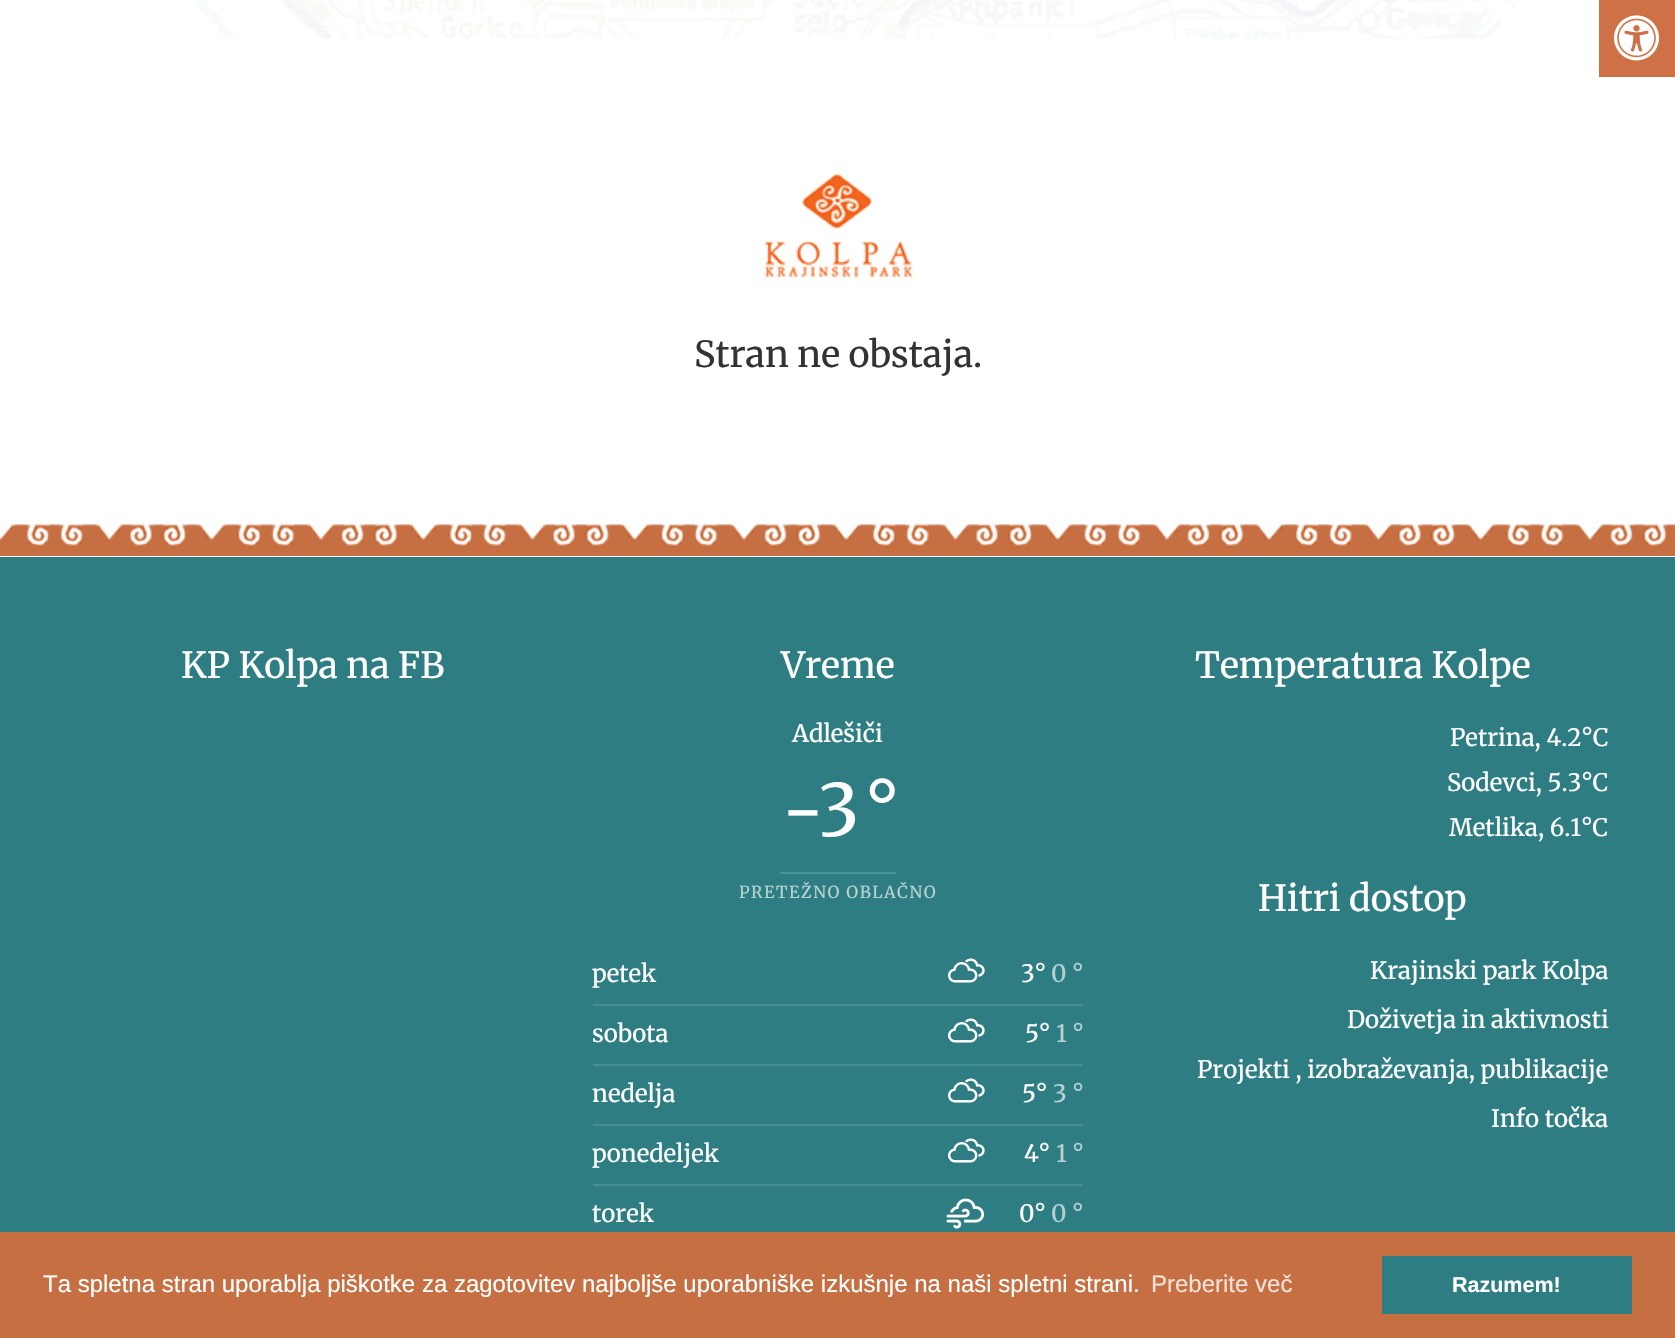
#include "include/core/SkBlurTypes.h"
#include "include/core/SkCanvas.h"
#include "include/core/SkData.h"
#include "include/core/SkFont.h"
#include "include/core/SkFontMgr.h"
#include "include/core/SkImage.h"
#include "include/core/SkMaskFilter.h"
#include "include/core/SkPaint.h"
#include "include/core/SkPathBuilder.h"
#include "include/core/SkTextBlob.h"
#include "include/effects/SkDashPathEffect.h"
#include "include/effects/SkGradientShader.h"
#include "include/utils/SkParsePath.h"

extern sk_sp<SkFontMgr> fontMgr;

void draw(SkCanvas* canvas) {
    SkPaint p;
    p.setAntiAlias(true);
    auto font = [&](const char* family, int weight, float size, bool italic = false) {
        SkFontStyle style(weight, SkFontStyle::kNormal_Width,
            italic ? SkFontStyle::kItalic_Slant : SkFontStyle::kUpright_Slant);
        SkFont result(fontMgr->matchFamilyStyle(family, style), size);
        result.setSubpixel(true);
        return result;
    };
    auto drawTracked = [&](const char* s, float x, float y, const SkFont& font, const SkPaint& ink, float letter, float word) {
        std::vector<SkGlyphID> glyphs(font.countText(s, strlen(s), SkTextEncoding::kUTF8));
        std::vector<float> xs(glyphs.size());
        font.textToGlyphs(s, strlen(s), SkTextEncoding::kUTF8, glyphs);
        font.getXPos(glyphs, xs, x);
        float extra = 0;
        for (size_t i = 0; i < glyphs.size(); i++) {
            xs[i] += extra;
            extra += letter + word * (glyphs[i] == font.unicharToGlyph(' '));
        }
        canvas->drawTextBlob(SkTextBlob::MakeFromPosHGlyphs(glyphs, xs, y, font), 0, 0, ink);
    };
    auto drawPhoto = [&](const char* path, float l, float t, float r, float b) {
        auto image = SkImages::DeferredFromEncodedData(SkData::MakeFromFileName(path));
        canvas->drawImageRect(image, SkRect::MakeLTRB(l, t, r, b), SkSamplingOptions());
    };
    canvas->clear(0xFFFFFFFF);
    p.setColor(0xFFCE7147);
    canvas->drawRect(SkRect::MakeLTRB(1599, 0, 1675, 77), p);
    drawPhoto("media/1.png", 1614, 15, 1659, 61);
    drawPhoto("media/2.png", 194, 0, 1515, 39);
    drawPhoto("media/3.png", 764, 173, 913, 278);
    auto font1 = font("Merriweather", 400, 36);
    p.setColor(0xFF333333);
    canvas->drawString("Stran ne obstaja.", 694, 367, font1, p);
    drawPhoto("media/4.png", 0, 524, 1675, 556);
    p.setColor(0xFF2D7D82);
    canvas->drawRect(SkRect::MakeLTRB(0, 557, 1675, 1232), p);
    p.setColor(0xFFFFFFFF);
    canvas->drawString("KP Kolpa na FB", 181, 678, font1, p);
    canvas->drawString("Vreme", 781, 678, font1, p);
    auto font2 = font("Merriweather", 400, 24);
    canvas->drawString("Adlešiči", 792, 742, font2, p);
    auto font3 = font("Merriweather", 400, 72);
    drawTracked("-3 °", 782, 836, font3, p, -5.5f, 0);
    p.setColor(0xFF4F9296);
    canvas->drawRect(SkRect::MakeLTRB(780, 872, 896, 874), p);
    auto font4 = font("Merriweather", 400, 16.5f);
    p.setColor(0xFFB6D2D3);
    drawTracked("PRETEŽNO OBLAČNO", 739, 898, font4, p, 1.5f, 0);
    p.setColor(0xFFFFFFFF);
    canvas->drawString("petek", 592, 982, font2, p);
    drawPhoto("media/5.png", 948, 958, 985, 983);
    canvas->drawString("3°", 1021, 982, font2, p);
    p.setColor(0xFFB6D2D3);
    canvas->drawString("0 °", 1051, 982, font2, p);
    p.setColor(0xFF478D92);
    canvas->drawRect(SkRect::MakeLTRB(593, 1004, 1083, 1006), p);
    p.setColor(0xFFFFFFFF);
    canvas->drawString("sobota", 592, 1042, font2, p);
    drawPhoto("media/5.png", 948, 1018, 985, 1043);
    canvas->drawString("5°", 1025, 1042, font2, p);
    p.setColor(0xFFB6D2D3);
    canvas->drawString("1 °", 1056, 1042, font2, p);
    p.setColor(0xFF478D92);
    canvas->drawRect(SkRect::MakeLTRB(593, 1064, 1083, 1066), p);
    p.setColor(0xFFFFFFFF);
    canvas->drawString("nedelja", 592, 1102, font2, p);
    drawPhoto("media/5.png", 948, 1078, 985, 1103);
    canvas->drawString("5°", 1022, 1102, font2, p);
    p.setColor(0xFFB6D2D3);
    canvas->drawString("3 °", 1053, 1102, font2, p);
    p.setColor(0xFF478D92);
    canvas->drawRect(SkRect::MakeLTRB(593, 1124, 1083, 1126), p);
    p.setColor(0xFFFFFFFF);
    canvas->drawString("ponedeljek", 592, 1162, font2, p);
    drawPhoto("media/5.png", 948, 1138, 985, 1163);
    canvas->drawString("4°", 1024, 1162, font2, p);
    p.setColor(0xFFB6D2D3);
    canvas->drawString("1 °", 1056, 1162, font2, p);
    p.setColor(0xFF478D92);
    canvas->drawRect(SkRect::MakeLTRB(593, 1184, 1083, 1186), p);
    p.setColor(0xFFFFFFFF);
    canvas->drawString("torek", 592, 1222, font2, p);
    drawPhoto("media/6.png", 946, 1198, 985, 1229);
    canvas->drawString("0°", 1019, 1222, font2, p);
    p.setColor(0xFFB6D2D3);
    canvas->drawString("0 °", 1051, 1222, font2, p);
    p.setColor(0xFFFFFFFF);
    canvas->drawString("Temperatura Kolpe", 1195, 678, font1, p);
    {
        const struct { const char* s; float x, y; } items[] = {
            {"Petrina, 4.2°C", 1450, 746},
            {"Sodevci, 5.3°C", 1447, 791},
            {"Metlika, 6.1°C", 1449, 836},
        };
        for (auto [s, x, y] : items) {
            canvas->drawString(s, x, y, font2, p);
        }
    }
    canvas->drawString("Hitri dostop", 1258, 911, font1, p);
    {
        const struct { const char* s; float x, y; } items[] = {
            {"Krajinski park Kolpa", 1370, 979},
            {"Doživetja in aktivnosti", 1347, 1028},
            {"Projekti , izobraževanja, publikacije", 1197, 1078},
            {"Info točka", 1491, 1127},
        };
        for (auto [s, x, y] : items) {
            canvas->drawString(s, x, y, font2, p);
        }
    }
    p.setColor(0xFFC66F42);
    canvas->drawRect(SkRect::MakeLTRB(0, 1232, 1675, 1338), p);
    auto font5 = font("Liberation Sans", 400, 24);
    p.setColor(0xFFFFFFFF);
    canvas->drawString("Ta spletna stran uporablja piškotke za zagotovitev najboljše uporabniške izkušnje na naši spletni strani.", 43, 1292, font5, p);
    p.setColor(0xFFF4E2D9);
    canvas->drawString("Preberite več", 1151, 1292, font5, p);
    p.setColor(0xFF2D7D82);
    canvas->drawRect(SkRect::MakeLTRB(1382, 1256, 1632, 1314), p);
    auto font6 = font("Liberation Sans", 700, 21.5f);
    p.setColor(0xFFFFFFFF);
    canvas->drawString("Razumem!", 1452, 1292, font6, p);
}
